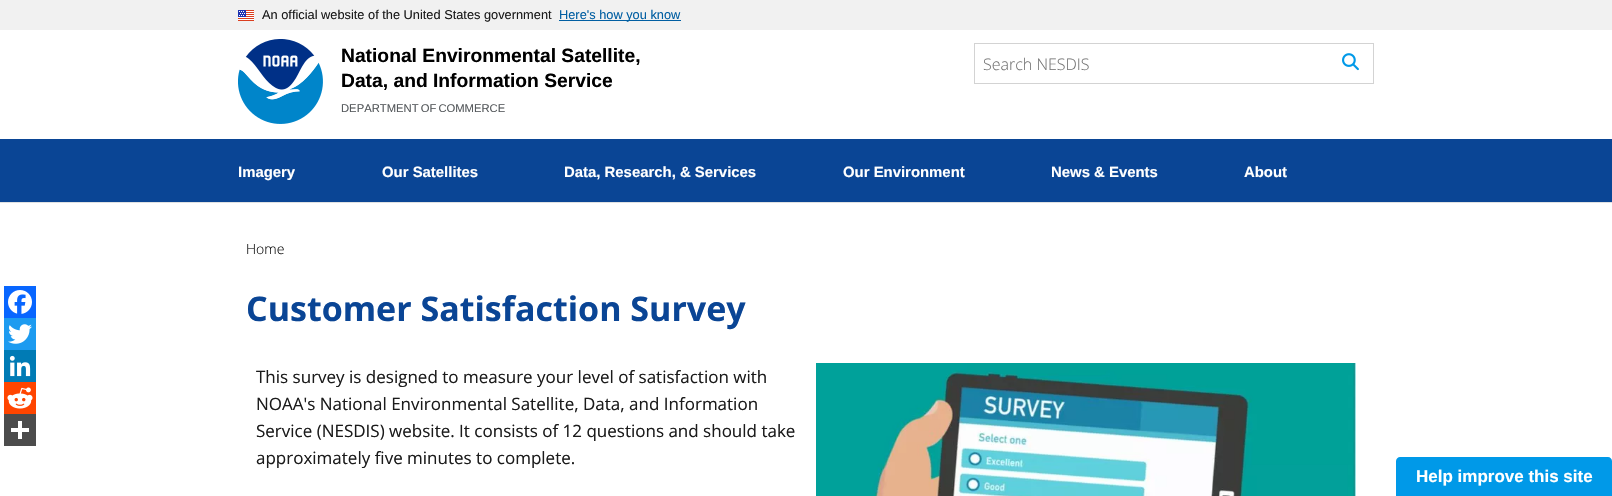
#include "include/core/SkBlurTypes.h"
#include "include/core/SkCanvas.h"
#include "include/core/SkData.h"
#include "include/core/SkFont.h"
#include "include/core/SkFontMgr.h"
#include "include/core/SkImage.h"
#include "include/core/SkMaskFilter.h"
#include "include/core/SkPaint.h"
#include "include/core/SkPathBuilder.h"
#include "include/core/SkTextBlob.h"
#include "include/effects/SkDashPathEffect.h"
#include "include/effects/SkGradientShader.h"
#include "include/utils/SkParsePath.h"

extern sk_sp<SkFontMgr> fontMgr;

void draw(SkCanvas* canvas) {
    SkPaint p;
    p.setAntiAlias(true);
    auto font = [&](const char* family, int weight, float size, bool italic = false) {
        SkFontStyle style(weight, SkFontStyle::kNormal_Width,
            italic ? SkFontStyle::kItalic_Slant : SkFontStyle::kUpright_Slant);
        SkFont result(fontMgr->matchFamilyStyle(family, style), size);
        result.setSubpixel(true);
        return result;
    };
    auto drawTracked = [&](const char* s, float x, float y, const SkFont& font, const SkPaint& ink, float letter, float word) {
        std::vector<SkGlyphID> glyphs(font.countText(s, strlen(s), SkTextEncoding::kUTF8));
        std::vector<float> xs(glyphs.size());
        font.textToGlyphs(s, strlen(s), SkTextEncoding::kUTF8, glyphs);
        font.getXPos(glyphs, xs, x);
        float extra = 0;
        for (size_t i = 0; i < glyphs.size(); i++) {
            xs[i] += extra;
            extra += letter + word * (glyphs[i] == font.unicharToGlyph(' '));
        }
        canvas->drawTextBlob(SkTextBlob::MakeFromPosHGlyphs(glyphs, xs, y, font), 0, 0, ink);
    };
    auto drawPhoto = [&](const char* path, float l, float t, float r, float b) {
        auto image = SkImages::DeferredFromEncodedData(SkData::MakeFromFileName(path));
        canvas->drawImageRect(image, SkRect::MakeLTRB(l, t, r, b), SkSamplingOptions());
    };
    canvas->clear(0xFFFFFFFF);
    p.setColor(0xFFF1F1F1);
    canvas->drawRect(SkRect::MakeLTRB(0, 0, 1612, 30), p);
    drawPhoto("media/1.png", 238, 10, 254, 21);
    auto font1 = font("Liberation Sans", 400, 12.8f);
    p.setColor(0xFF1B1B1B);
    canvas->drawString("An official website of the United States government", 262, 19, font1, p);
    p.setColor(0xFF005EA2);
    canvas->drawRect(SkRect::MakeLTRB(559, 20, 681, 21), p);
    canvas->drawString("Here's how you know", 559, 19, font1, p);
    drawPhoto("media/2.png", 238, 39, 323, 124);
    auto font2 = font("Liberation Sans", 700, 19.25f);
    p.setColor(0xFF000000);
    canvas->drawString("National Environmental Satellite,", 341, 62, font2, p);
    canvas->drawString("Data, and Information Service", 341, 87, font2, p);
    auto font3 = font("Liberation Sans", 400, 11.25f);
    p.setColor(0xFF55595C);
    drawTracked("DEPARTMENT OF COMMERCE", 341, 112, font3, p, 0, -1);
    p.setColor(0xFF0A4595);
    canvas->drawRect(SkRect::MakeLTRB(0, 139, 1612, 202), p);
    p.setStyle(SkPaint::kStroke_Style);
    p.setStrokeWidth(1);
    p.setColor(0xFFD3D3D3);
    canvas->drawRect(SkRect::MakeLTRB(974.5f, 43.5f, 1373.5f, 83.5f), p);
    auto font4 = font("Open Sans", 300, 16);
    p.setStyle(SkPaint::kFill_Style);
    p.setColor(0xFF757575);
    canvas->drawString("Search NESDIS", 983, 70, font4, p);
    drawPhoto("media/3.png", 1342, 53, 1359, 71);
    auto font5 = font("Liberation Sans", 700, 14.9f);
    p.setColor(0xFFFFFFFF);
    {
        const struct { const char* s; float x, y; } items[] = {
            {"Imagery", 238, 177},
            {"Our Satellites", 382, 177},
            {"Data, Research, & Services", 564, 177},
            {"Our Environment", 843, 177},
            {"News & Events", 1051, 177},
            {"About", 1244, 177},
        };
        for (auto [s, x, y] : items) {
            canvas->drawString(s, x, y, font5, p);
        }
    }
    p.setColor(0xFFDFE1E2);
    canvas->drawRect(SkRect::MakeLTRB(0, 202, 1612, 203), p);
    auto font6 = font("Open Sans", 300, 14);
    p.setColor(0xFF0A0A0A);
    canvas->drawString("Home", 246, 254, font6, p);
    auto font7 = font("Open Sans", 700, 34);
    p.setColor(0xFF0A4595);
    canvas->drawString("Customer Satisfaction Survey", 246, 321, font7, p);
    p.setColor(0xFF0866FF);
    canvas->drawRect(SkRect::MakeLTRB(4, 286, 36, 318), p);
    drawPhoto("media/4.png", 8, 290, 32, 314);
    p.setColor(0xFF1D9BF0);
    canvas->drawRect(SkRect::MakeLTRB(4, 318, 36, 350), p);
    drawPhoto("media/5.png", 8, 324, 32, 344);
    p.setColor(0xFF007BB5);
    canvas->drawRect(SkRect::MakeLTRB(4, 350, 36, 382), p);
    drawPhoto("media/6.png", 9, 355, 31, 377);
    p.setColor(0xFFFF4500);
    canvas->drawRect(SkRect::MakeLTRB(4, 382, 36, 414), p);
    drawPhoto("media/7.png", 7, 387, 33, 409);
    {
        const struct { float l, t, r, b; SkColor color; } items[] = {
            {4, 414, 36, 446, 0xFF4C4C4C},
            {18, 421, 22, 439, 0xFFFFFFFF},
            {11, 428, 29, 432, 0xFFFFFFFF},
        };
        for (auto [l, t, r, b, color] : items) {
            p.setColor(color);
            canvas->drawRect(SkRect::MakeLTRB(l, t, r, b), p);
        }
    }
    auto font8 = font("Open Sans", 400, 17);
    p.setColor(0xFF1B1B1B);
    {
        const struct { const char* s; float x, y; } items[] = {
            {"This survey is designed to measure your level of satisfaction with", 256, 383},
            {"NOAA's National Environmental Satellite, Data, and Information", 256, 410},
            {"Service (NESDIS) website. It consists of 12 questions and should take", 256, 437},
            {"approximately five minutes to complete.", 256, 464},
        };
        for (auto [s, x, y] : items) {
            canvas->drawString(s, x, y, font8, p);
        }
    }
    drawPhoto("media/8.png", 816, 363, 1356, 496);
    p.setColor(0xFF0099E8);
    canvas->drawPath(SkPathBuilder().moveTo(1400, 457).lineTo(1608, 457).cubicTo(1610, 457, 1612, 459, 1612, 461).lineTo(1612, 496).lineTo(1396, 496).lineTo(1396, 461).cubicTo(1396, 459, 1398, 457, 1400, 457).close().detach(), p);
    auto font9 = font("Liberation Sans", 700, 17);
    p.setColor(0xFFFFFFFF);
    canvas->drawString("Help improve this site", 1416, 482, font9, p);
}
